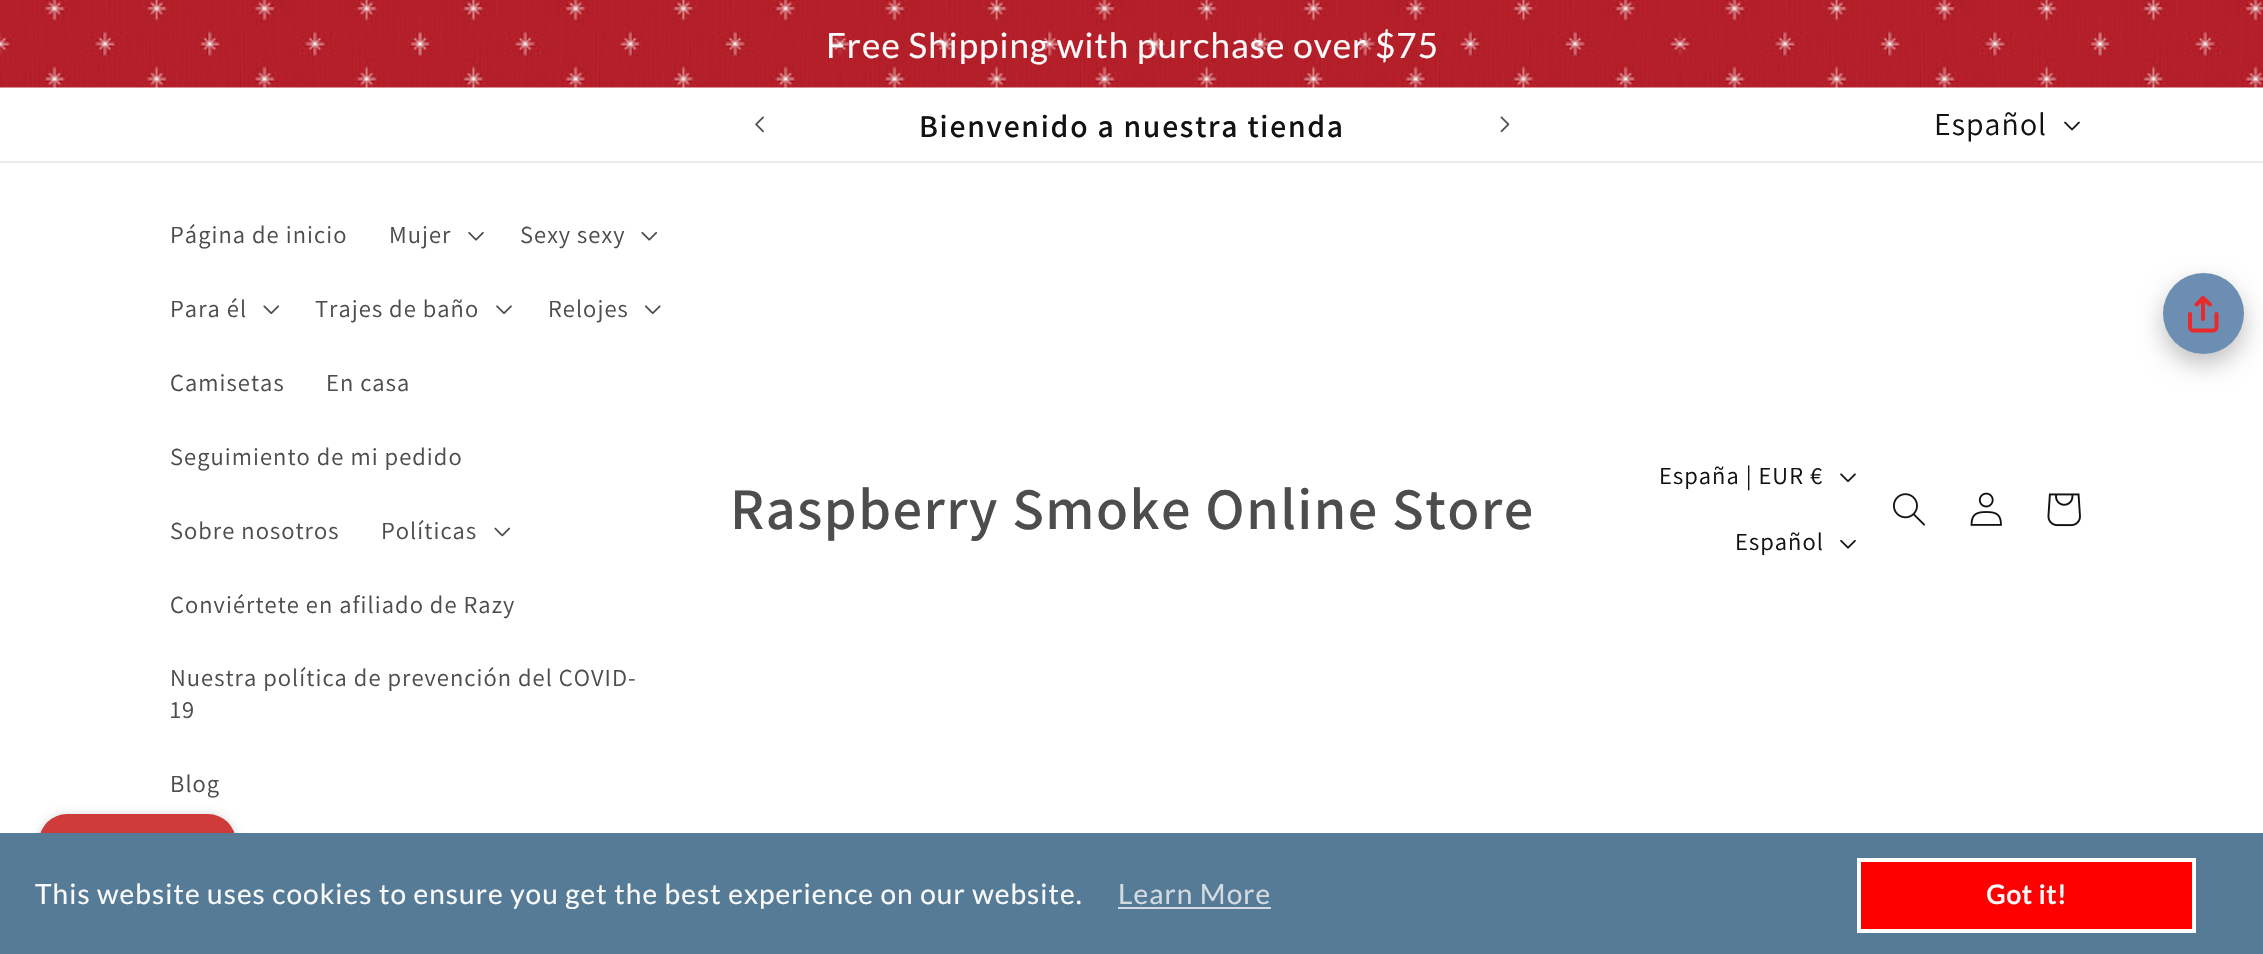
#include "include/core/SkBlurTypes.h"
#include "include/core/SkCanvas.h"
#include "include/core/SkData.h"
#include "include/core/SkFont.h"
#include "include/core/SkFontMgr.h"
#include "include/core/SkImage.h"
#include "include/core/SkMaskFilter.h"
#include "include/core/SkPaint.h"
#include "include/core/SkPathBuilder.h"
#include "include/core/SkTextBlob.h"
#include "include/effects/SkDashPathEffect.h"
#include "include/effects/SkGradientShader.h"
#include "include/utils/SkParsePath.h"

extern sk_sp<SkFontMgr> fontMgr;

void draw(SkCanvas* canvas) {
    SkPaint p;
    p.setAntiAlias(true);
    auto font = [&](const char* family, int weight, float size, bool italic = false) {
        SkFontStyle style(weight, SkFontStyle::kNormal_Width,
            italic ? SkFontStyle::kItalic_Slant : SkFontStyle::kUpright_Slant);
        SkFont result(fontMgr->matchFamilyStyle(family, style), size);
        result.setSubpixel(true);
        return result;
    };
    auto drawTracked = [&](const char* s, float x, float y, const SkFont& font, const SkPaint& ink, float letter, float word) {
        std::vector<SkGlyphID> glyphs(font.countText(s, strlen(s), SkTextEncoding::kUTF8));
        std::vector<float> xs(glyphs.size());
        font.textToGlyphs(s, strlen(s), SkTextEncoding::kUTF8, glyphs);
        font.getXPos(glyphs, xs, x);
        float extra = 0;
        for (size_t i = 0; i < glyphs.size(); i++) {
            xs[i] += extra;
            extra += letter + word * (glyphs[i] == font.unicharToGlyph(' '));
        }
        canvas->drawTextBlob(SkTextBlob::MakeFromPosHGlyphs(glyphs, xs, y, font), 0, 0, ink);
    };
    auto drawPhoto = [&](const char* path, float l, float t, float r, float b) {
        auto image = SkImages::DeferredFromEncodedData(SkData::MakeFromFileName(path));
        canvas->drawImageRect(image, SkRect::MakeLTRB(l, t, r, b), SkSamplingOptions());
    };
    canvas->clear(0xFFFFFFFF);
    drawPhoto("media/1.png", 0, 0, 2263, 88);
    auto font1 = font("Lato", 400, 35);
    p.setColor(0xFFFAFAFA);
    drawTracked("Free Shipping with purchase over $75", 826, 58, font1, p, 1.05f, 0);
    p.setColor(0xFFECECEC);
    canvas->drawRect(SkRect::MakeLTRB(0, 161, 2263, 163), p);
    drawPhoto("media/2.png", 755, 116, 764, 133);
    auto font2 = font("Assistant", 600, 31.8f);
    p.setColor(0xFF121212);
    drawTracked("Bienvenido a nuestra tienda", 919, 137, font2, p, 1.75f, 0);
    drawPhoto("media/3.png", 1500, 116, 1510, 133);
    auto font3 = font("Assistant", 400, 31.8f);
    drawTracked("Español", 1934, 135, font3, p, 1.05f, 0);
    drawPhoto("media/4.png", 2064, 121, 2080, 131);
    auto font4 = font("Assistant", 400, 24.5f);
    p.setColor(0xFF4D4D4D);
    drawTracked("Página de inicio", 170, 243, font4, p, 1.05f, 0);
    drawTracked("Mujer", 389, 243, font4, p, 1.05f, 0);
    drawPhoto("media/5.png", 468, 232, 484, 241);
    drawTracked("Sexy sexy", 520, 243, font4, p, 1.05f, 0);
    drawPhoto("media/6.png", 641, 231, 658, 241);
    drawTracked("Para él", 170, 317, font4, p, 1.05f, 0);
    drawPhoto("media/7.png", 263, 305, 280, 315);
    drawTracked("Trajes de baño", 315, 317, font4, p, 1.05f, 0);
    drawPhoto("media/8.png", 496, 305, 512, 314);
    drawTracked("Relojes", 548, 317, font4, p, 1.05f, 0);
    drawPhoto("media/9.png", 644, 305, 661, 315);
    {
        const struct { const char* s; float x, y; } items[] = {
            {"Camisetas", 170, 391},
            {"En casa", 326, 391},
            {"Seguimiento de mi pedido", 170, 465},
            {"Sobre nosotros", 170, 539},
            {"Políticas", 381, 539},
        };
        for (auto [s, x, y] : items) {
            drawTracked(s, x, y, font4, p, 1.05f, 0);
        }
    }
    drawPhoto("media/10.png", 494, 527, 511, 537);
    {
        const struct { const char* s; float x, y; } items[] = {
            {"Conviértete en afiliado de Razy", 170, 613},
            {"Nuestra política de prevención del COVID-", 170, 686},
            {"19", 170, 718},
            {"Blog", 170, 792},
        };
        for (auto [s, x, y] : items) {
            drawTracked(s, x, y, font4, p, 1.05f, 0);
        }
    }
    auto font5 = font("Assistant", 600, 58.75f);
    drawTracked("Raspberry Smoke Online Store", 730, 529, font5, p, 1.5f, 0);
    p.setColor(0xFF121212);
    drawTracked("España | EUR €", 1659, 484, font4, p, 1.05f, 0);
    drawPhoto("media/11.png", 1840, 473, 1856, 482);
    drawTracked("Español", 1735, 550, font4, p, 1.05f, 0);
    drawPhoto("media/12.png", 1840, 540, 1856, 549);
    drawPhoto("media/13.png", 1893, 493, 1925, 526);
    drawPhoto("media/14.png", 1970, 492, 2002, 526);
    drawPhoto("media/15.png", 2047, 493, 2081, 527);
    p.setColor(0x40000000);
    p.setMaskFilter(SkMaskFilter::MakeBlur(kNormal_SkBlurStyle, 12));
    canvas->drawRoundRect(SkRect::MakeLTRB(2163, 284, 2244, 364), 40, 40, p);
    p.setMaskFilter(nullptr);
    p.setColor(0xFF6C8EB3);
    canvas->drawCircle(2203.5f, 313.5f, 40.5f, p);
    p.setStyle(SkPaint::kStroke_Style);
    p.setStrokeWidth(4);
    p.setStrokeCap(SkPaint::kRound_Cap);
    p.setStrokeJoin(SkPaint::kRound_Join);
    p.setColor(0xFFE82A2A);
    canvas->drawPath(SkPathBuilder().moveTo(2190, 314).lineTo(2190, 327).cubicTo(2190, 329, 2191.5f, 330.5f, 2193, 330.5f).lineTo(2213.5f, 330.5f).cubicTo(2215, 330.5f, 2216.5f, 329, 2216.5f, 327).lineTo(2216.5f, 314).moveTo(2210, 304.5f).lineTo(2203, 298).lineTo(2196.5f, 304.5f).moveTo(2203, 298).lineTo(2203, 319).detach(), p);
    p.setStyle(SkPaint::kFill_Style);
    p.setColor(0x26000000);
    p.setMaskFilter(SkMaskFilter::MakeBlur(kNormal_SkBlurStyle, 4.5f));
    canvas->drawRoundRect(SkRect::MakeLTRB(39, 814, 236, 919), 28, 28, p);
    p.setMaskFilter(nullptr);
    p.setColor(0xFFCF3B3B);
    canvas->drawRoundRect(SkRect::MakeLTRB(39, 814, 236, 919), 28, 28, p);
    p.setColor(0xFF557B97);
    canvas->drawRect(SkRect::MakeLTRB(0, 833, 2263, 954), p);
    auto font6 = font("Lato", 400, 28);
    p.setColor(0xFFFAFAFA);
    drawTracked("This website uses cookies to ensure you get the best experience on our website.", 35, 904, font6, p, 1.05f, 0);
    p.setColor(0xFFD3DBE1);
    drawTracked("Learn More", 1118, 904, font6, p, 1.05f, 0);
    canvas->drawRect(SkRect::MakeLTRB(1118, 907, 1271, 909), p);
    p.setColor(0xFFFF0000);
    canvas->drawRect(SkRect::MakeLTRB(1859, 860, 2194, 931), p);
    p.setStyle(SkPaint::kStroke_Style);
    p.setStrokeCap(SkPaint::kButt_Cap);
    p.setStrokeJoin(SkPaint::kMiter_Join);
    p.setColor(0xFFFFFFFF);
    canvas->drawRect(SkRect::MakeLTRB(1859, 860, 2194, 931), p);
    auto font7 = font("Lato", 700, 26);
    p.setStyle(SkPaint::kFill_Style);
    p.setColor(0xFFFAFAFA);
    drawTracked("Got it!", 1986, 904, font7, p, 1.05f, 0);
}
